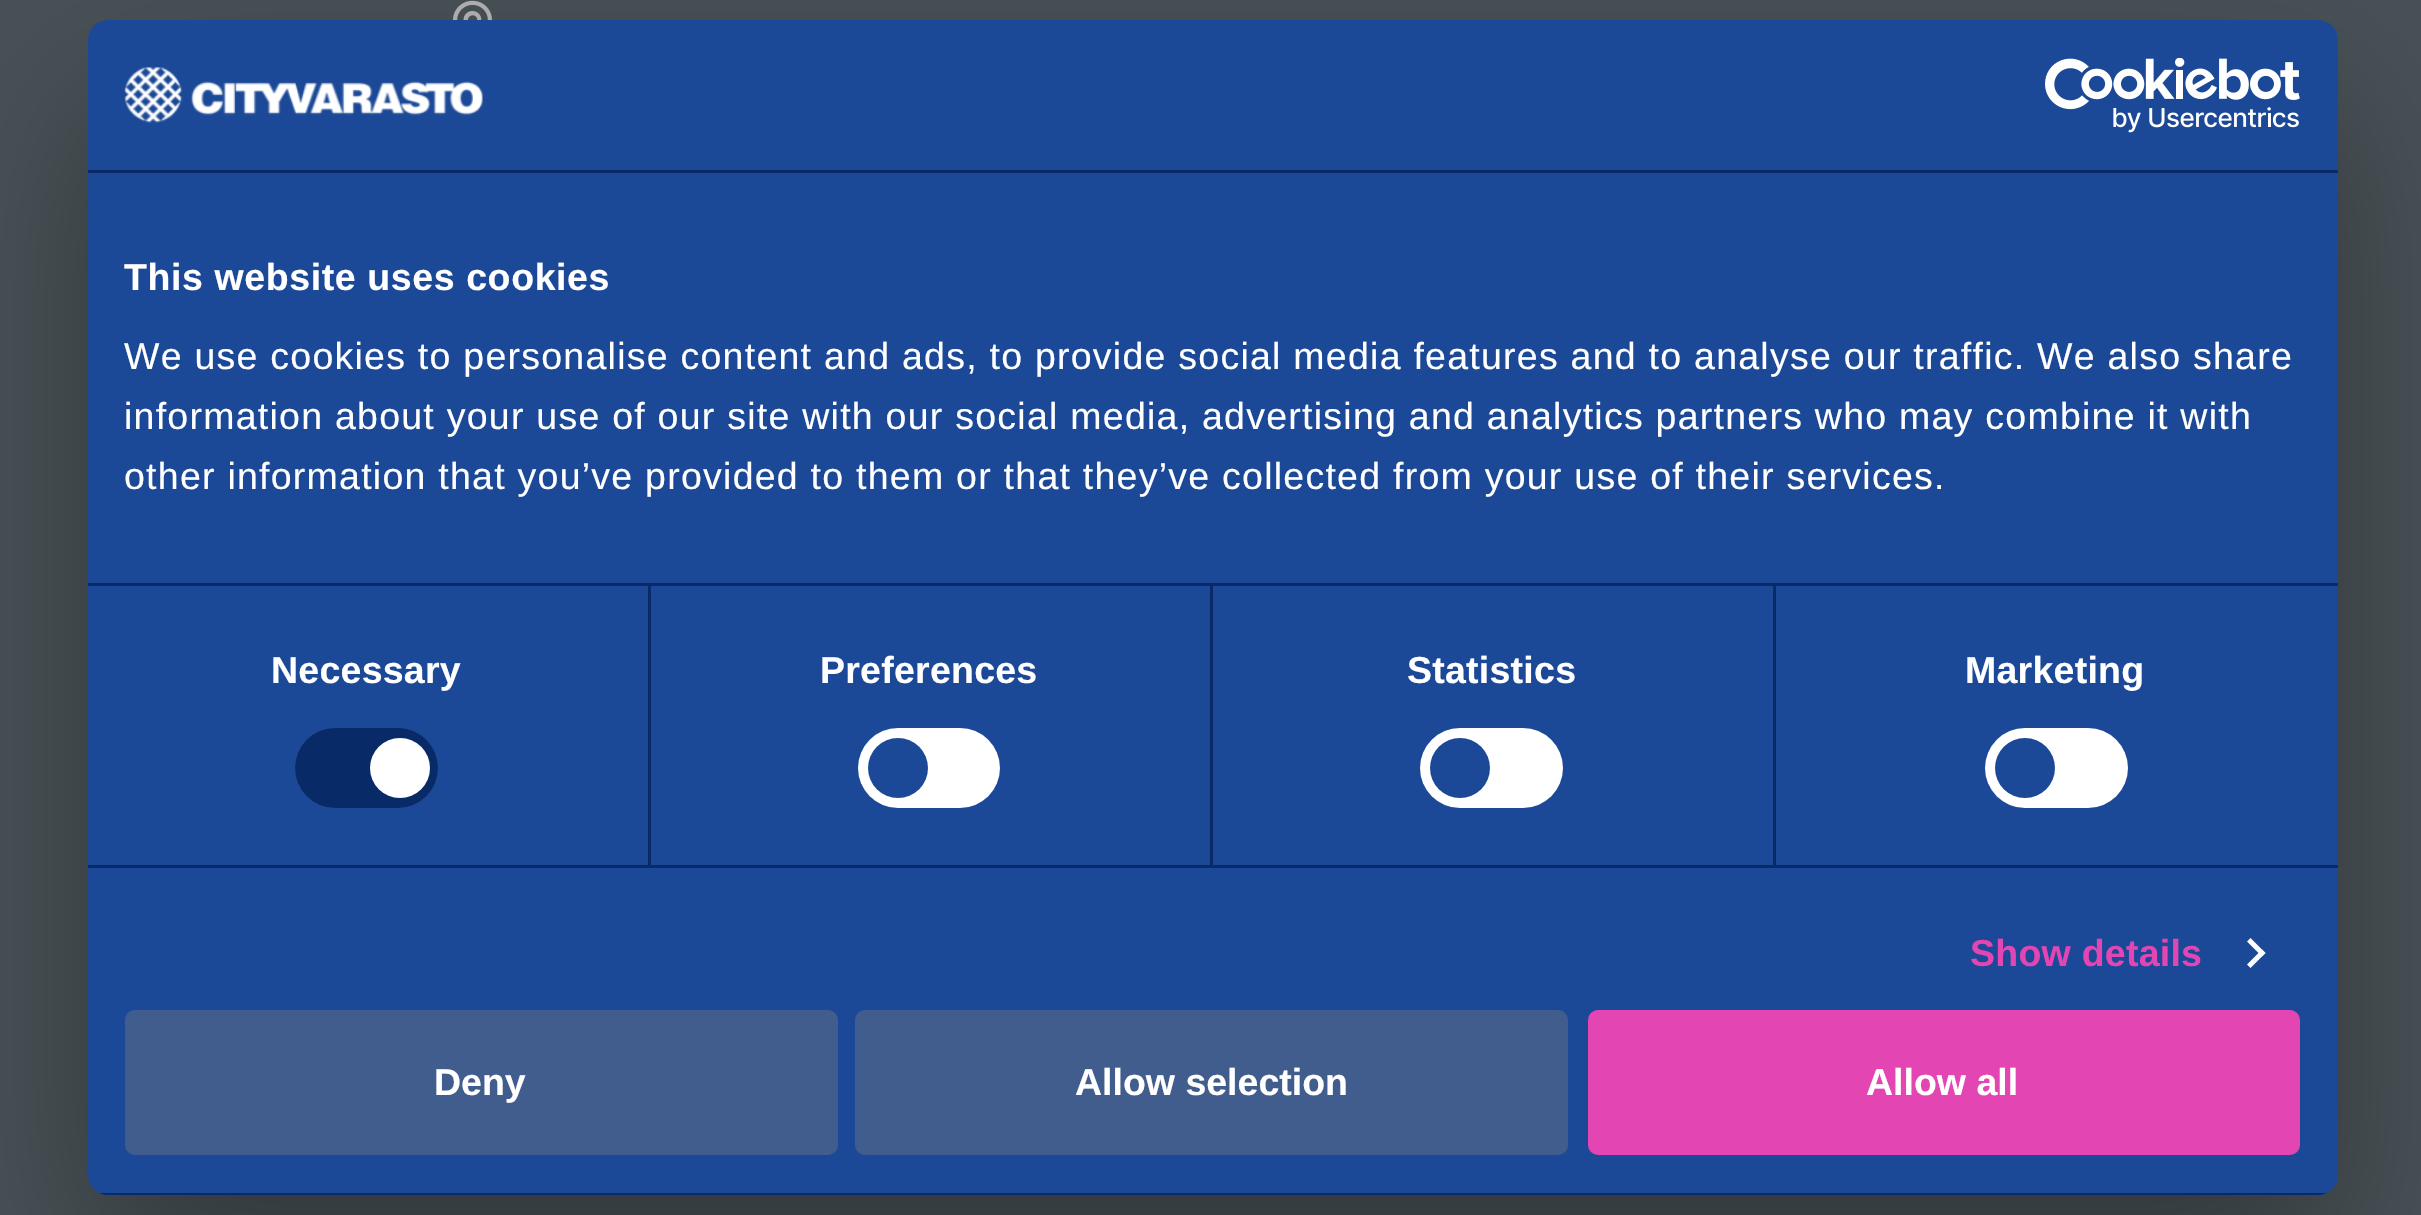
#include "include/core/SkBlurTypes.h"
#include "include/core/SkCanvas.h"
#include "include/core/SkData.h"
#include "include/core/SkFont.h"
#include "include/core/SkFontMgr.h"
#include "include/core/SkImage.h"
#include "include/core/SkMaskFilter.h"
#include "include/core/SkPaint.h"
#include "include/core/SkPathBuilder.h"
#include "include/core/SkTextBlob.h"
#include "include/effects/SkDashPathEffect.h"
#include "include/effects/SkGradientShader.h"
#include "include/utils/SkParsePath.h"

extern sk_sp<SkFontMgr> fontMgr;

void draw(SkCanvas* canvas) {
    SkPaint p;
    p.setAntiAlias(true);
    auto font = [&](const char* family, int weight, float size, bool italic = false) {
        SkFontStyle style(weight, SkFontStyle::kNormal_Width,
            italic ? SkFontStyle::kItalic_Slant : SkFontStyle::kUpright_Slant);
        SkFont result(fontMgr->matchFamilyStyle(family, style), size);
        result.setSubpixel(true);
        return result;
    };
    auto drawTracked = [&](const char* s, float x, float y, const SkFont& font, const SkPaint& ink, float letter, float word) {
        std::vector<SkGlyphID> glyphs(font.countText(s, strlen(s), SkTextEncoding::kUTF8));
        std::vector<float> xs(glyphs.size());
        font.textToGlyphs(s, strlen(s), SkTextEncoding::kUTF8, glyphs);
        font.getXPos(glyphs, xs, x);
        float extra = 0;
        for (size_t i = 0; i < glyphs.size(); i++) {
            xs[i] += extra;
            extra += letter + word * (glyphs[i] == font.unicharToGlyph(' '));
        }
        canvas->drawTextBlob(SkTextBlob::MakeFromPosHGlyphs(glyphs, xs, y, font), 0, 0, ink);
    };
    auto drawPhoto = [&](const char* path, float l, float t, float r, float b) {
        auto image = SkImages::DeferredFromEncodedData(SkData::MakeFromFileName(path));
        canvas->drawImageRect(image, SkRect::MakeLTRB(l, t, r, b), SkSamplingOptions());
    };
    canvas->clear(0xFF485156);
    drawPhoto("media/1.png", 453, 0, 492, 20);
    p.setColor(0x4D000000);
    p.setMaskFilter(SkMaskFilter::MakeBlur(kNormal_SkBlurStyle, 85));
    canvas->drawRoundRect(SkRect::MakeLTRB(88, 100, 2338, 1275), 20, 20, p);
    p.setMaskFilter(nullptr);
    p.setColor(0xFF1C4997);
    canvas->drawRoundRect(SkRect::MakeLTRB(88, 20, 2338, 1195), 20, 20, p);
    p.setColor(0xFF082B68);
    canvas->drawRect(SkRect::MakeLTRB(88, 170, 2338, 173), p);
    drawPhoto("media/2.png", 124, 67, 483, 123);
    drawPhoto("media/3.png", 2045, 58, 2300, 133);
    {
        const struct { float l, t, r, b; SkColor color; } items[] = {
            {648, 585, 651, 865, 0xFF082B68},
            {1210, 585, 1213, 865, 0xFF082B68},
            {1773, 585, 1776, 865, 0xFF082B68},
            {88, 583, 2338, 586, 0xFF082B68},
        };
        for (auto [l, t, r, b, color] : items) {
            p.setColor(color);
            canvas->drawRect(SkRect::MakeLTRB(l, t, r, b), p);
        }
    }
    auto font1 = font("Liberation Sans", 700, 37.5f);
    p.setColor(0xFFFFFFFF);
    drawTracked("This website uses cookies", 124, 290, font1, p, 0.6f, 0);
    auto font2 = font("Liberation Sans", 400, 37.5f);
    {
        const struct { const char* s; float x, y; } items[] = {
            {"We use cookies to personalise content and ads, to provide social media features and to analyse our traffic. We also share", 124, 369},
            {"information about your use of our site with our social media, advertising and analytics partners who may combine it with", 124, 429},
            {"other information that you’ve provided to them or that they’ve collected from your use of their services.", 124, 489},
        };
        for (auto [s, x, y] : items) {
            drawTracked(s, x, y, font2, p, 1.25f, 0);
        }
    }
    p.setColor(0xFF082B68);
    canvas->drawRect(SkRect::MakeLTRB(88, 865, 2338, 868), p);
    p.setColor(0xFFFFFFFF);
    drawTracked("Necessary", 271, 683, font1, p, 0.25f, 0);
    p.setColor(0xFF082B68);
    canvas->drawRoundRect(SkRect::MakeLTRB(295, 728, 438, 808), 40, 40, p);
    p.setColor(0xFFFFFFFF);
    canvas->drawCircle(400, 768, 30, p);
    drawTracked("Preferences", 820, 683, font1, p, 0.25f, 0);
    canvas->drawRoundRect(SkRect::MakeLTRB(858, 728, 1000, 808), 40, 40, p);
    p.setColor(0xFF1C4997);
    canvas->drawCircle(898, 768, 30, p);
    p.setColor(0xFFFFFFFF);
    drawTracked("Statistics", 1407, 683, font1, p, 0.25f, 0);
    canvas->drawRoundRect(SkRect::MakeLTRB(1420, 728, 1563, 808), 40, 40, p);
    p.setColor(0xFF1C4997);
    canvas->drawCircle(1460, 768, 30, p);
    p.setColor(0xFFFFFFFF);
    drawTracked("Marketing", 1965, 683, font1, p, 0.25f, 0);
    canvas->drawRoundRect(SkRect::MakeLTRB(1985, 728, 2128, 808), 40, 40, p);
    p.setColor(0xFF1C4997);
    canvas->drawCircle(2025, 768, 30, p);
    p.setColor(0xFFE346B3);
    drawTracked("Show details", 1970, 966, font1, p, 0.25f, 0);
    p.setColor(0xFFFFFFFF);
    canvas->drawPath(SkPathBuilder().moveTo(2250.5f, 938).lineTo(2265.5f, 953).lineTo(2262, 956.5f).lineTo(2247, 941.5f).close().detach(), p);
    canvas->drawPath(SkPathBuilder().moveTo(2262, 949.5f).lineTo(2265.5f, 953).lineTo(2250.5f, 968).lineTo(2247, 964.5f).close().detach(), p);
    canvas->save();
    canvas->clipPath(SkPathBuilder().moveTo(108, 20).lineTo(2318, 20).cubicTo(2329, 20, 2338, 29, 2338, 40).lineTo(2338, 1175).cubicTo(2338, 1186, 2329, 1195, 2318, 1195).lineTo(108, 1195).cubicTo(97, 1195, 88, 1186, 88, 1175).lineTo(88, 40).cubicTo(88, 29, 97, 20, 108, 20).close().detach(), true);
    p.setColor(0xFF082B68);
    canvas->drawRect(SkRect::MakeLTRB(99, 1193, 2327, 1195), p);
    canvas->restore();
    p.setColor(0xFF415D8D);
    canvas->drawRoundRect(SkRect::MakeLTRB(127.5f, 1012.5f, 835.5f, 1152.5f), 7.5f, 7.5f, p);
    p.setStyle(SkPaint::kStroke_Style);
    p.setStrokeWidth(5);
    canvas->drawRoundRect(SkRect::MakeLTRB(127.5f, 1012.5f, 835.5f, 1152.5f), 7.5f, 7.5f, p);
    p.setStyle(SkPaint::kFill_Style);
    p.setColor(0xFFFFFFFF);
    canvas->drawString("Deny", 434, 1095, font1, p);
    p.setColor(0xFF415D8D);
    canvas->drawRoundRect(SkRect::MakeLTRB(857.5f, 1012.5f, 1565.5f, 1152.5f), 7.5f, 7.5f, p);
    p.setStyle(SkPaint::kStroke_Style);
    canvas->drawRoundRect(SkRect::MakeLTRB(857.5f, 1012.5f, 1565.5f, 1152.5f), 7.5f, 7.5f, p);
    p.setStyle(SkPaint::kFill_Style);
    p.setColor(0xFFFFFFFF);
    canvas->drawString("Allow selection", 1075, 1095, font1, p);
    p.setColor(0xFFE346B3);
    canvas->drawRoundRect(SkRect::MakeLTRB(1590.5f, 1012.5f, 2297.5f, 1152.5f), 7.5f, 7.5f, p);
    p.setStyle(SkPaint::kStroke_Style);
    canvas->drawRoundRect(SkRect::MakeLTRB(1590.5f, 1012.5f, 2297.5f, 1152.5f), 7.5f, 7.5f, p);
    p.setStyle(SkPaint::kFill_Style);
    p.setColor(0xFFFFFFFF);
    canvas->drawString("Allow all", 1866, 1095, font1, p);
}
